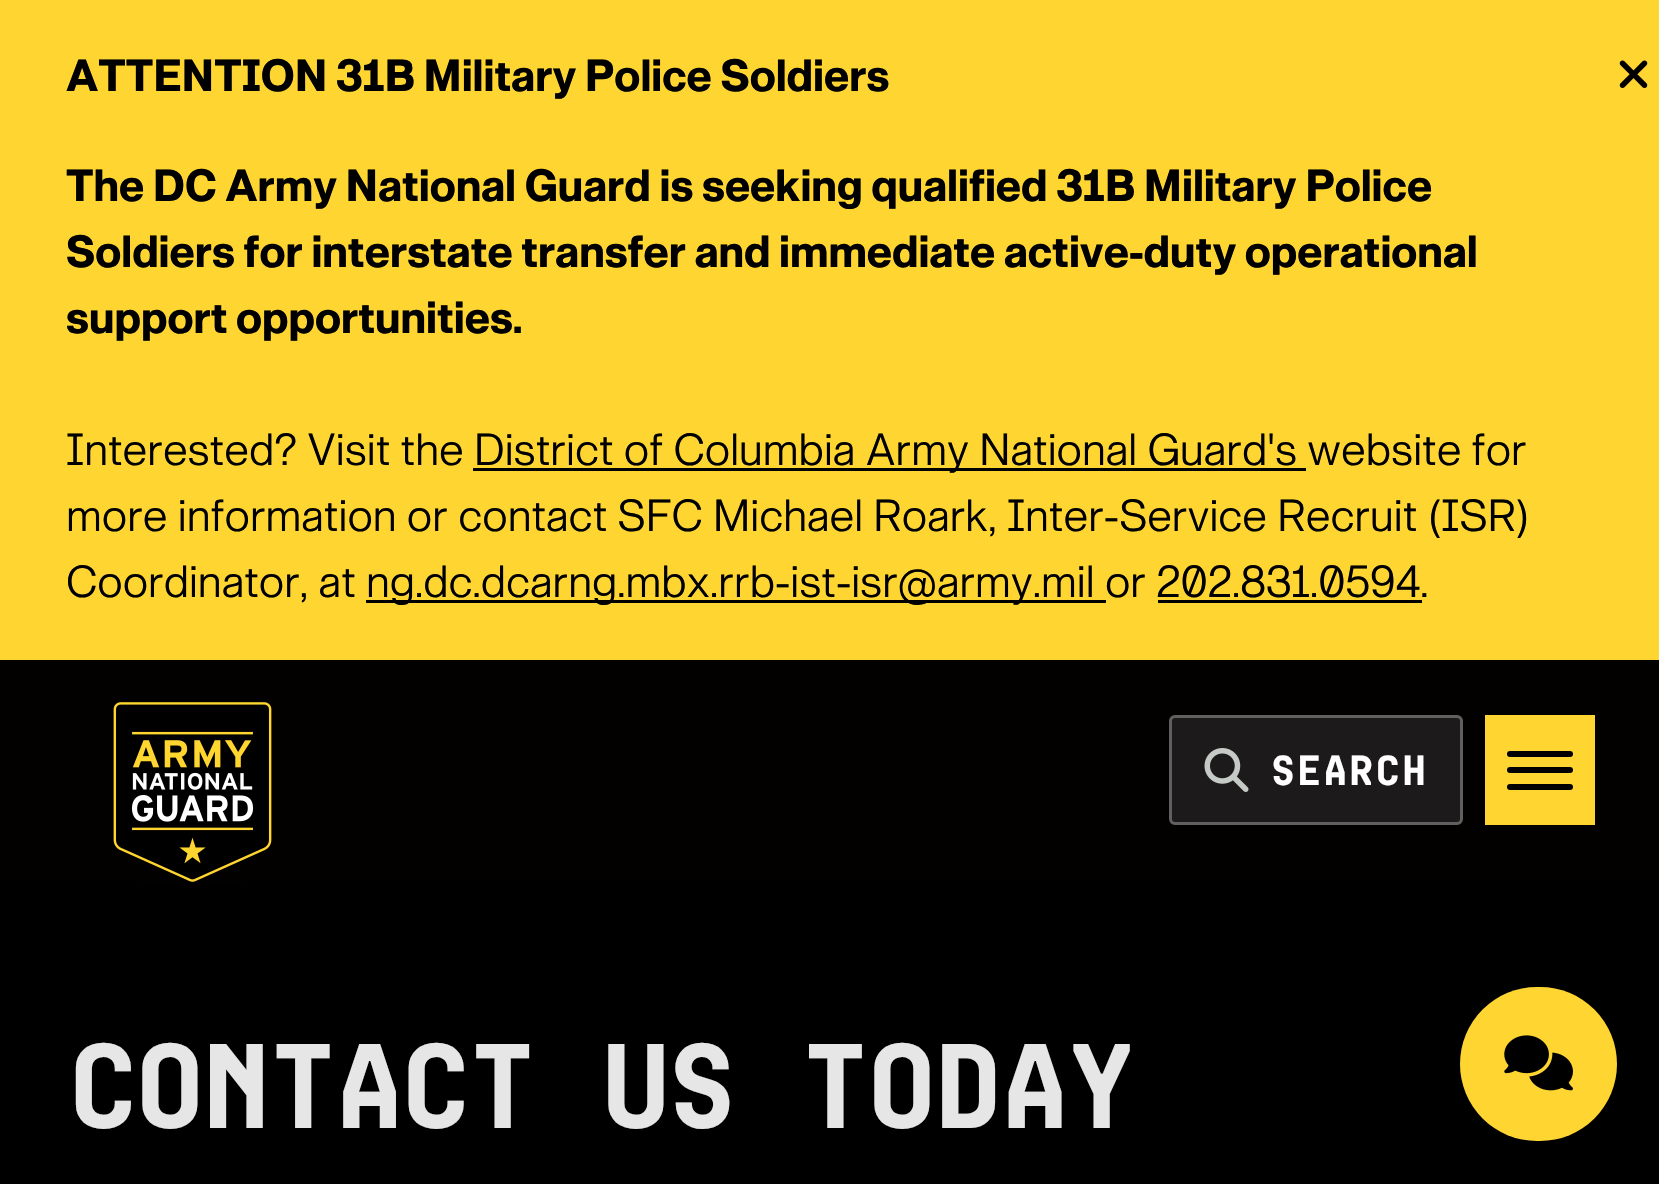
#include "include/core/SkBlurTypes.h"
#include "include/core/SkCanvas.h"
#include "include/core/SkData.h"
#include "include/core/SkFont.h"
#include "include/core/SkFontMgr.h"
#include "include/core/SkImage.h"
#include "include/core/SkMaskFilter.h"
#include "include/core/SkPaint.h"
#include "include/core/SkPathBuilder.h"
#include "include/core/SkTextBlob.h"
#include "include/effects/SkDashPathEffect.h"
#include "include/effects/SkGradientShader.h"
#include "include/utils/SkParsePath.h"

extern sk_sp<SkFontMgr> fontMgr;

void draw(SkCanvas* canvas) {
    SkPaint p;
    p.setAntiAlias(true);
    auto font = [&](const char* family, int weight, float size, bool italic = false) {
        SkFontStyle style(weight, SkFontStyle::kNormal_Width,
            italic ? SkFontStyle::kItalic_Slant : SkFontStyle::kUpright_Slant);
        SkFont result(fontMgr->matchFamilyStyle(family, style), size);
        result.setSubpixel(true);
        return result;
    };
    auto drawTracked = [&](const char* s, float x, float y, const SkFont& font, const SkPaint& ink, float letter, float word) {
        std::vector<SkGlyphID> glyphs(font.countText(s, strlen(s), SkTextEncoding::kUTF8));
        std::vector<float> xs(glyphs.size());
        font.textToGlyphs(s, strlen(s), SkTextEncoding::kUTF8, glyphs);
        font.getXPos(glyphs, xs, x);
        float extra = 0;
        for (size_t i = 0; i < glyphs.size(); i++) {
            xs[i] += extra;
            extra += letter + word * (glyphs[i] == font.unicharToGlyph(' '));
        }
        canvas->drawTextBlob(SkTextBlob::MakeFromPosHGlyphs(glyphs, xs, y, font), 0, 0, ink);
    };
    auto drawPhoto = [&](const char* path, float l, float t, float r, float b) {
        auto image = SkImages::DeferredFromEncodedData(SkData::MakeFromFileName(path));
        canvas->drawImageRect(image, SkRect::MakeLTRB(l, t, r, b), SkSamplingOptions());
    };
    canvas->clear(0xFF000000);
    p.setColor(0xFFFFD531);
    canvas->drawRect(SkRect::MakeLTRB(0, 0, 1659, 660), p);
    auto font1 = font("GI", 700, 44);
    p.setColor(0xFF000000);
    canvas->drawString("ATTENTION 31B Military Police Soldiers", 66, 91, font1, p);
    drawPhoto("media/1.png", 1619, 60, 1648, 88);
    {
        const struct { const char* s; float x, y; } items[] = {
            {"The DC Army National Guard is seeking qualified 31B Military Police", 66, 201},
            {"Soldiers for interstate transfer and immediate active-duty operational", 66, 267},
            {"support opportunities.", 66, 333},
        };
        for (auto [s, x, y] : items) {
            canvas->drawString(s, x, y, font1, p);
        }
    }
    auto font2 = font("GI", 400, 44);
    canvas->drawString("Interested? Visit the", 66, 465, font2, p);
    canvas->drawRect(SkRect::MakeLTRB(473, 468, 1306, 471), p);
    {
        const struct { const char* s; float x, y; } items[] = {
            {"District of Columbia Army National Guard's website for", 474, 465},
            {"more information or contact SFC Michael Roark, Inter-Service Recruit (ISR)", 66, 531},
            {"Coordinator, at", 66, 597},
        };
        for (auto [s, x, y] : items) {
            canvas->drawString(s, x, y, font2, p);
        }
    }
    canvas->drawRect(SkRect::MakeLTRB(366, 600, 1106, 603), p);
    canvas->drawString("ng.dc.dcarng.mbx.rrb-ist-isr@army.mil or 202.831.0594.", 366, 597, font2, p);
    canvas->drawRect(SkRect::MakeLTRB(1158, 600, 1422, 603), p);
    p.setColor(0xFF030000);
    canvas->drawRect(SkRect::MakeLTRB(0, 660, 1659, 880), p);
    drawPhoto("media/2.png", 113, 702, 272, 882);
    p.setColor(0xFF1C1A1A);
    canvas->drawRoundRect(SkRect::MakeLTRB(1169, 715, 1463, 825), 6, 6, p);
    p.setStyle(SkPaint::kStroke_Style);
    p.setStrokeWidth(3);
    p.setColor(0x4DFFFFFF);
    canvas->drawRoundRect(SkRect::MakeLTRB(1170.5f, 716.5f, 1461.5f, 823.5f), 4.5f, 4.5f, p);
    drawPhoto("media/3.png", 1204, 748, 1249, 792);
    auto font3 = font("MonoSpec", 700, 38.5f);
    p.setStyle(SkPaint::kFill_Style);
    p.setColor(0xFFFFFFFF);
    canvas->drawString("SEARCH", 1270, 785, font3, p);
    p.setColor(0xFFFFD531);
    canvas->drawRect(SkRect::MakeLTRB(1485, 715, 1595, 825), p);
    p.setColor(0xFF000000);
    canvas->drawRoundRect(SkRect::MakeLTRB(1507, 751, 1573, 757), 3, 3, p);
    canvas->drawRoundRect(SkRect::MakeLTRB(1507, 767, 1573, 773), 3, 3, p);
    canvas->drawRoundRect(SkRect::MakeLTRB(1507, 784, 1573, 790), 3, 3, p);
    auto font4 = font("MonoSpec", 700, 110);
    p.setColor(0xFFE6E6E6);
    drawTracked("CONTACT US TODAY", 66, 1128, font4, p, -8.25f, 0);
    p.setColor(0xFFFFD531);
    canvas->drawRoundRect(SkRect::MakeLTRB(1460, 987, 1617, 1141), 77, 77, p);
    drawPhoto("media/4.png", 1504, 1035, 1573, 1091);
}
